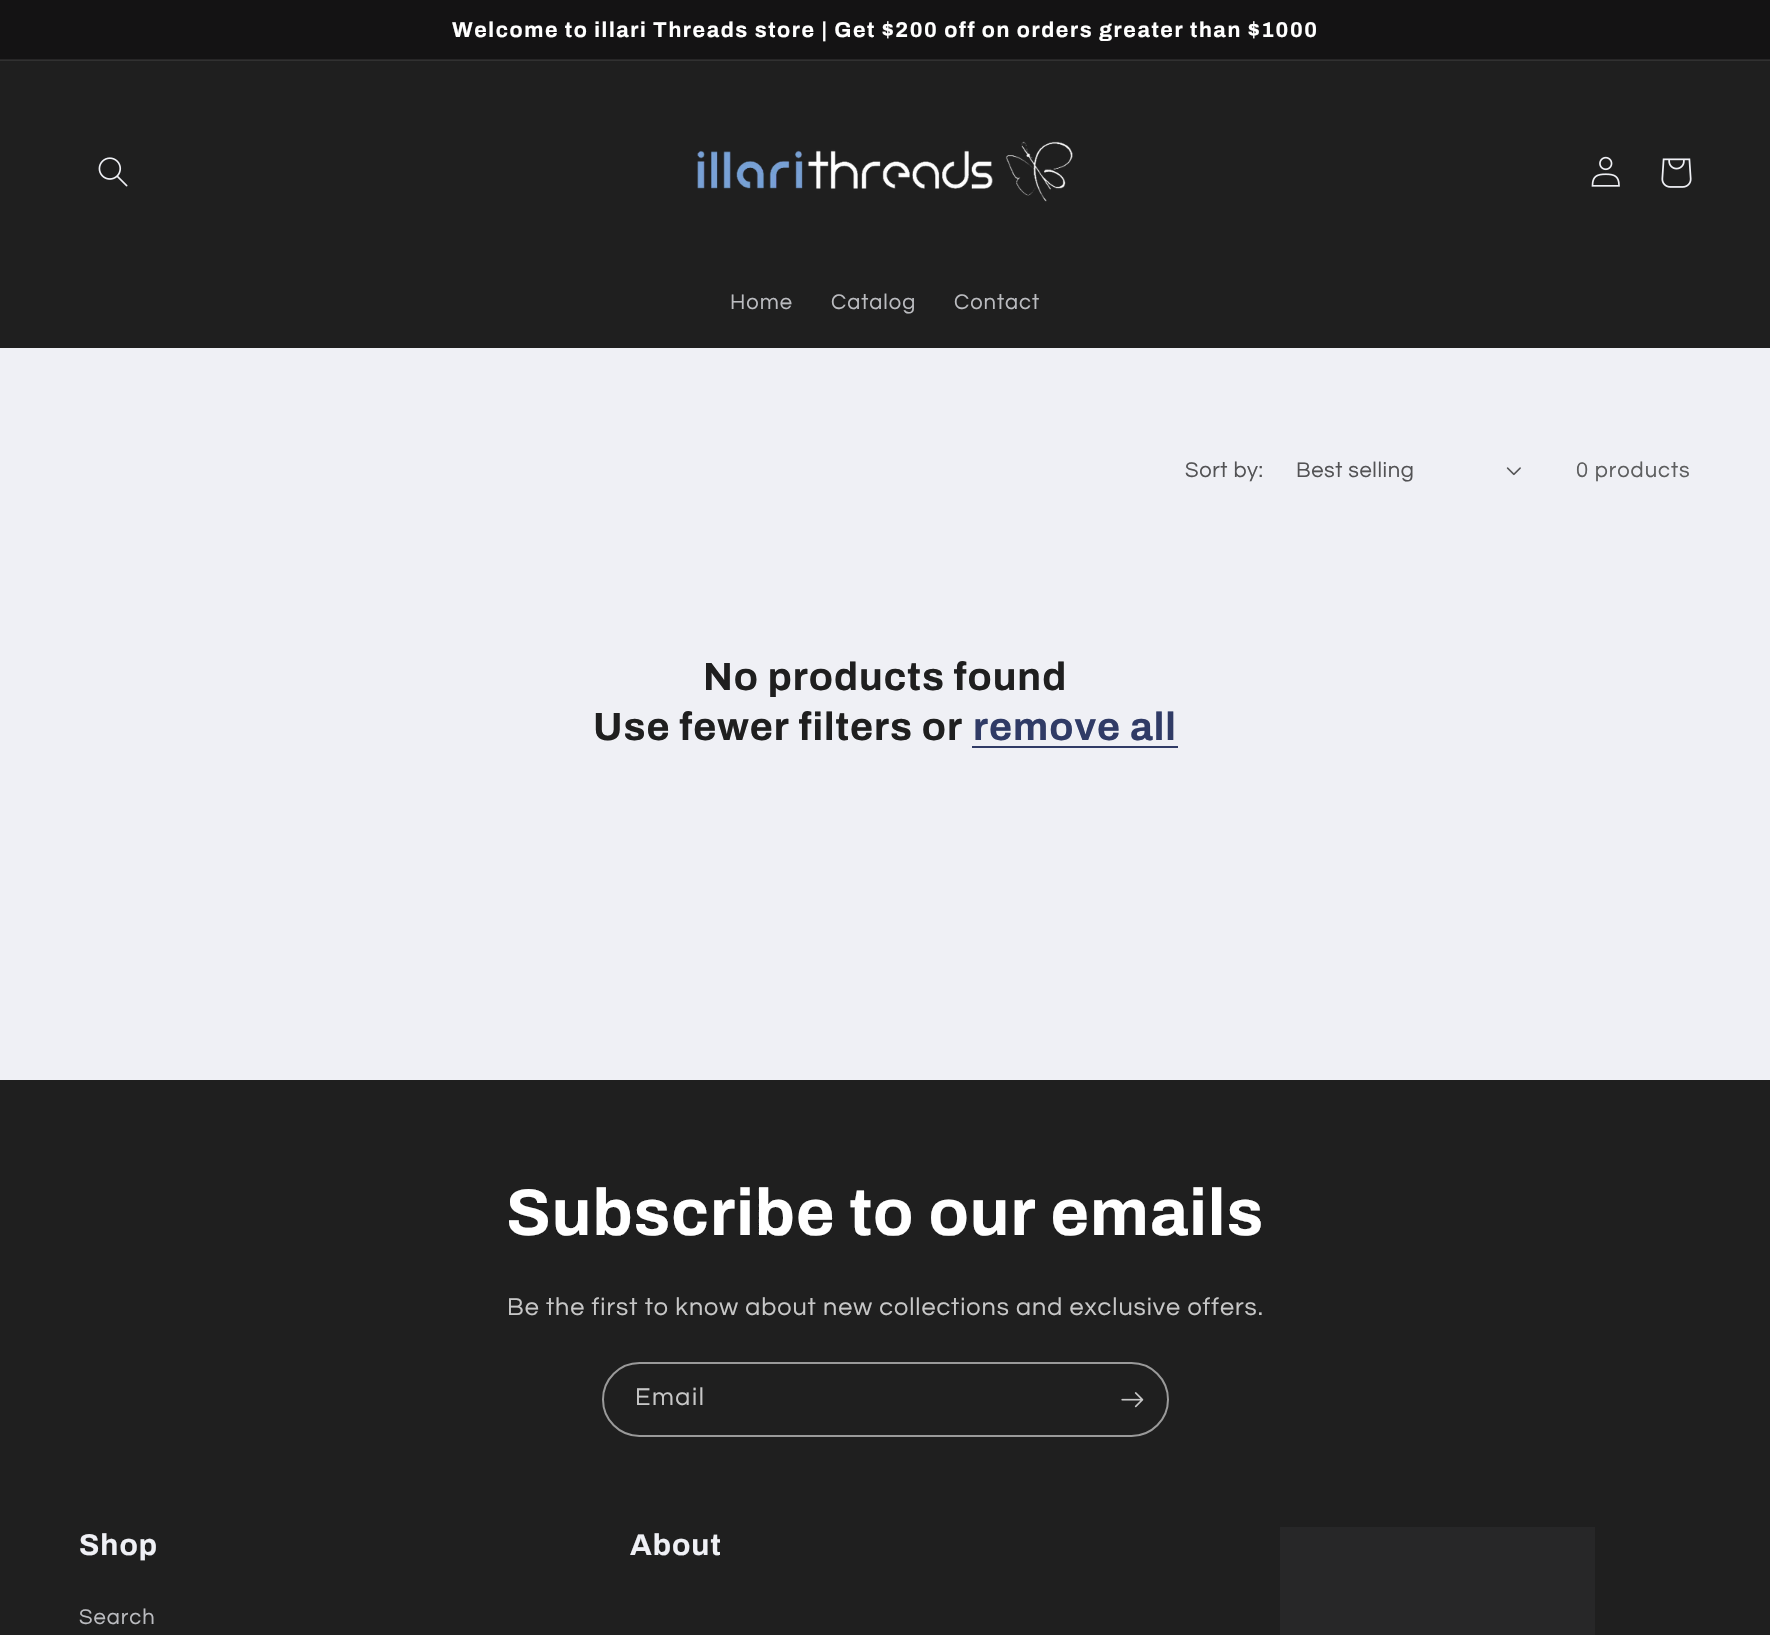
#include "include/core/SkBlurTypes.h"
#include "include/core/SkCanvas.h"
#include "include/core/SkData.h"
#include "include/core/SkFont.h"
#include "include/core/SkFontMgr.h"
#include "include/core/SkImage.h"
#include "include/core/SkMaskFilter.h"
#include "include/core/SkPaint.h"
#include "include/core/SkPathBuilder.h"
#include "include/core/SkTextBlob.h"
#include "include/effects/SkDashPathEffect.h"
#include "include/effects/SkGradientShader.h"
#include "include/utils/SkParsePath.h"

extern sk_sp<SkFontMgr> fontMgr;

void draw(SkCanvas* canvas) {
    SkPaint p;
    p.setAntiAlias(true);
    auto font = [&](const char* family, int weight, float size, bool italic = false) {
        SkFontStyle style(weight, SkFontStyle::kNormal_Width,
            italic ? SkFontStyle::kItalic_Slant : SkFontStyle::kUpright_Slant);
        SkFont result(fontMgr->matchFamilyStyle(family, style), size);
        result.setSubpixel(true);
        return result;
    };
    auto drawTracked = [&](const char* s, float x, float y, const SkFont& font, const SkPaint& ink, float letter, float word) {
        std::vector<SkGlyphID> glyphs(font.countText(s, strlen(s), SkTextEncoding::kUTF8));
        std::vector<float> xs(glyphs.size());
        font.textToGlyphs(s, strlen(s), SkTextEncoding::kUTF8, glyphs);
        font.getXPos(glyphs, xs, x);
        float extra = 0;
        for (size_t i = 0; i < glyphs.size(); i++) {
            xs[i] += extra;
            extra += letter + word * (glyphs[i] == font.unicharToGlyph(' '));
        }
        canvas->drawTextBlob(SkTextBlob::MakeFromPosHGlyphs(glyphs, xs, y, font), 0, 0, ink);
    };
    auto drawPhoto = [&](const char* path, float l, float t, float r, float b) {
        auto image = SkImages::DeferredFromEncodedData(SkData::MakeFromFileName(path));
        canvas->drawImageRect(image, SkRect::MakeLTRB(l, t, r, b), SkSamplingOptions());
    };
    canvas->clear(0xFFEFF0F5);
    p.setColor(0xFF141314);
    canvas->drawRect(SkRect::MakeLTRB(0, 0, 1770, 59), p);
    p.setColor(0xFF272627);
    canvas->drawRect(SkRect::MakeLTRB(0, 59, 1770, 60), p);
    auto font1 = font("Archivo", 700, 21.45f);
    p.setColor(0xFFFFFFFF);
    drawTracked("Welcome to illari Threads store | Get $200 off on orders greater than $1000", 452, 37, font1, p, 1.58f, 0);
    p.setColor(0xFF1F1F1F);
    canvas->drawRect(SkRect::MakeLTRB(0, 61, 1770, 348), p);
    p.setColor(0xFF313131);
    canvas->drawRect(SkRect::MakeLTRB(0, 60, 1770, 61), p);
    drawPhoto("media/1.png", 98, 157, 128, 187);
    drawPhoto("media/2.png", 697, 141, 1073, 202);
    drawPhoto("media/3.png", 1591, 156, 1620, 187);
    drawPhoto("media/4.png", 1661, 158, 1692, 188);
    auto font2 = font("Questrial", 400, 22);
    p.setColor(0xFFBBBCC0);
    {
        const struct { const char* s; float x, y; } items[] = {
            {"Home", 730, 309},
            {"Catalog", 831, 309},
            {"Contact", 954, 309},
        };
        for (auto [s, x, y] : items) {
            drawTracked(s, x, y, font2, p, 0.95f, 0);
        }
    }
    p.setColor(0xFF535355);
    drawTracked("Sort by:", 1185, 477, font2, p, 0.6f, 0);
    drawTracked("Best selling", 1296, 477, font2, p, 0.6f, 0);
    drawPhoto("media/5.png", 1506, 467, 1521, 476);
    p.setColor(0xFF5D5E5F);
    drawTracked("0 products", 1576, 477, font2, p, 0.95f, 0);
    auto font3 = font("Archivo", 700, 39.5f);
    p.setColor(0xFF1F1F1F);
    drawTracked("No products found", 703, 690, font3, p, 1, 0);
    drawTracked("Use fewer filters or", 593, 740, font3, p, 1, 0);
    p.setColor(0xFF303B66);
    drawTracked("remove all", 973, 740, font3, p, 1, 0);
    canvas->drawRect(SkRect::MakeLTRB(972, 746, 1178, 748), p);
    p.setColor(0xFF1F1F1F);
    canvas->drawRect(SkRect::MakeLTRB(0, 1080, 1770, 1635), p);
    auto font4 = font("Archivo", 700, 66);
    p.setColor(0xFFFFFFFF);
    drawTracked("Subscribe to our emails", 506, 1235, font4, p, 1, 0);
    auto font5 = font("Questrial", 400, 25.2f);
    p.setColor(0xFFC7C7C7);
    drawTracked("Be the first to know about new collections and exclusive offers.", 507, 1315, font5, p, 0.95f, 0);
    p.setStyle(SkPaint::kStroke_Style);
    p.setStrokeWidth(2);
    p.setColor(0xFF9A9A9A);
    canvas->drawRoundRect(SkRect::MakeLTRB(603, 1363, 1168, 1436), 36.5f, 36.5f, p);
    p.setStyle(SkPaint::kFill_Style);
    p.setColor(0xFFC7C7C7);
    drawTracked("Email", 635, 1405, font5, p, 1.58f, 0);
    drawPhoto("media/6.png", 1121, 1392, 1144, 1408);
    auto font6 = font("Archivo", 700, 30);
    p.setColor(0xFFEFF0F5);
    drawTracked("Shop", 79, 1555, font6, p, 1, 0);
    p.setColor(0xFFBBBCC0);
    drawTracked("Search", 79, 1624, font2, p, 0.95f, 0);
    p.setColor(0xFFEFF0F5);
    drawTracked("About", 630, 1555, font6, p, 1, 0);
    p.setColor(0xFF272728);
    canvas->drawRect(SkRect::MakeLTRB(1280, 1527, 1595, 1635), p);
}
